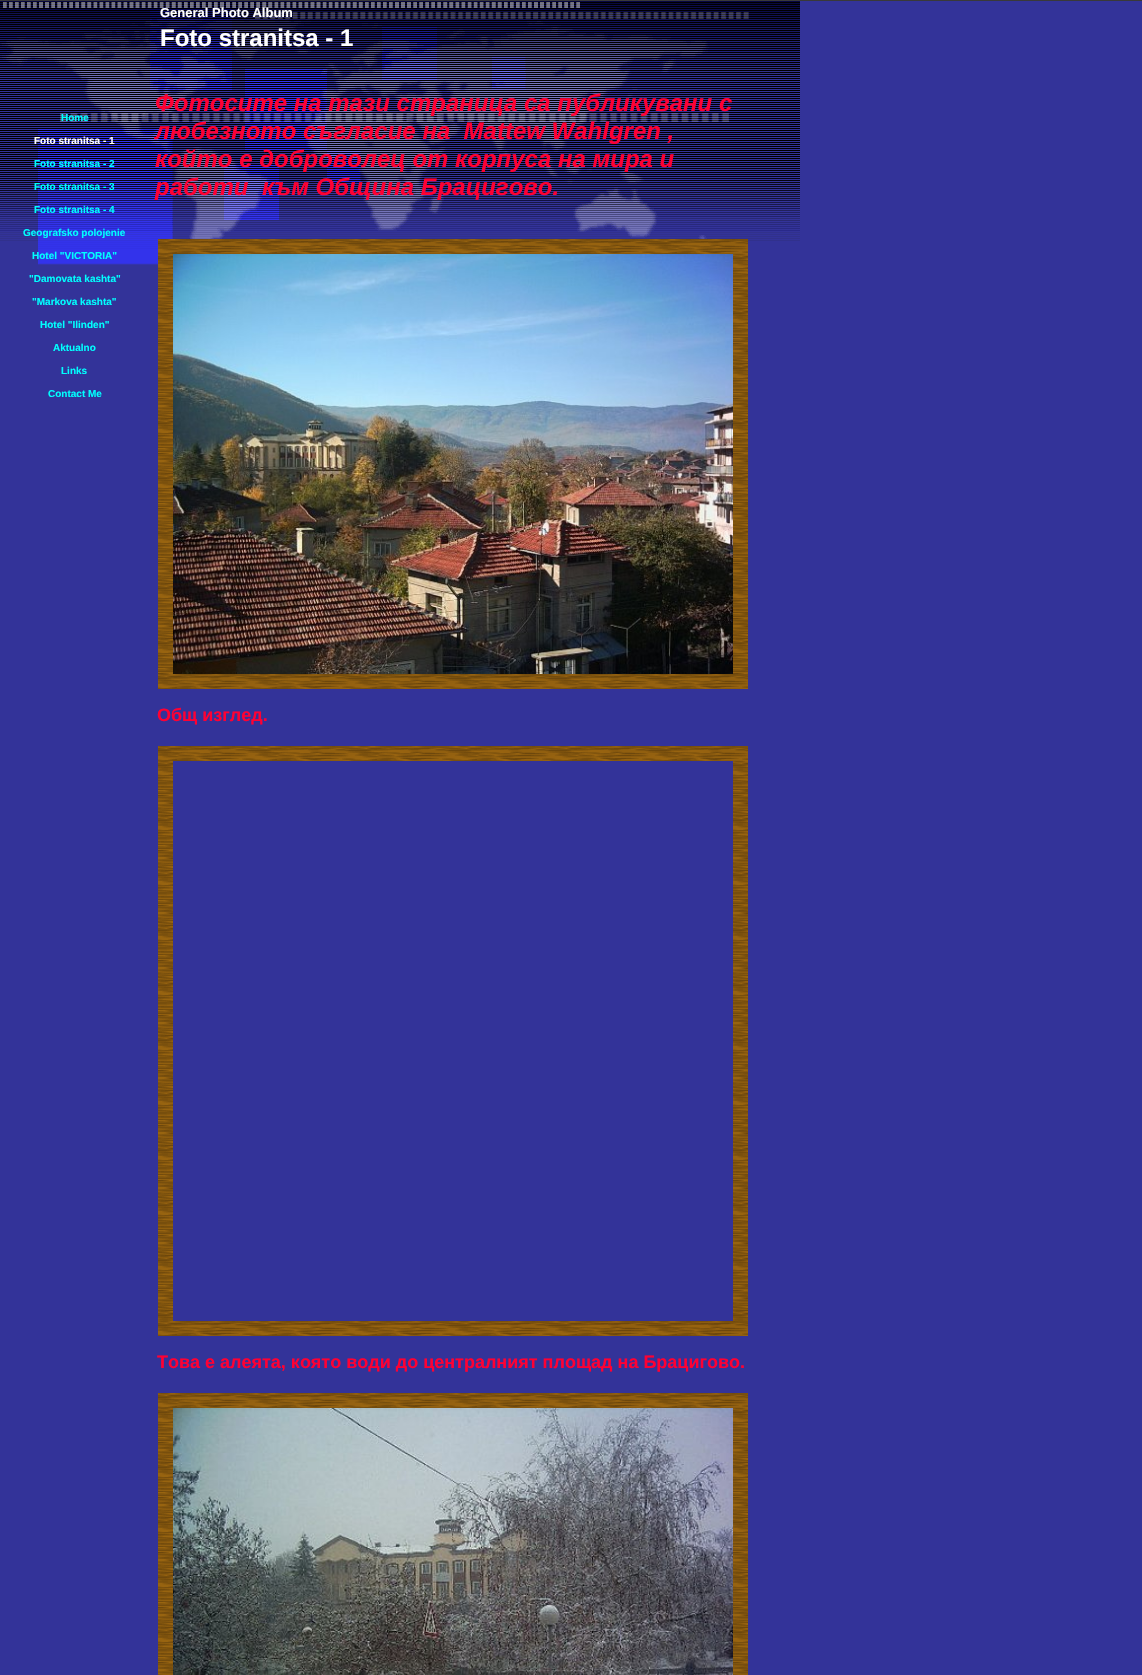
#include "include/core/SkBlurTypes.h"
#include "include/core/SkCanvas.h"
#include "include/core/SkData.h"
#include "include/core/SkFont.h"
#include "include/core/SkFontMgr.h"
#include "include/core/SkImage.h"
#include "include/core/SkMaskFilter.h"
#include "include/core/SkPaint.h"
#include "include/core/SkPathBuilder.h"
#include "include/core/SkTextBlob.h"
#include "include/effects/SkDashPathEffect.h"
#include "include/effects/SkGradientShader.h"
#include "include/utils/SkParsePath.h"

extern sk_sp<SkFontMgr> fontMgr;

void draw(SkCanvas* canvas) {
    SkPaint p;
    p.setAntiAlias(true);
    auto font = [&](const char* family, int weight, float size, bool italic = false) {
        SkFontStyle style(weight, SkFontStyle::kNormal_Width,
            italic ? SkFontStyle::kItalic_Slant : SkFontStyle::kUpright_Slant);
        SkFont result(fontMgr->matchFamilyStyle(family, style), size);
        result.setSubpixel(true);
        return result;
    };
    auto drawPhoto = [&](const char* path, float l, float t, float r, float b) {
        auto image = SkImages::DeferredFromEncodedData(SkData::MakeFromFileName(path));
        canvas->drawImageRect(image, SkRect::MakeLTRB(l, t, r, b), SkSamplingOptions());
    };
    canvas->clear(0xFF333399);
    drawPhoto("media/1.png", 0, 1, 800, 270);
    p.setColor(0xFF393939);
    canvas->drawRect(SkRect::MakeLTRB(0, 0, 1142, 1), p);
    auto font1 = font("Liberation Sans", 700, 13);
    p.setColor(0xFFFFFFFF);
    canvas->drawString("General Photo Album", 160, 17, font1, p);
    auto font2 = font("Liberation Sans", 700, 24);
    canvas->drawString("Foto stranitsa - 1", 160, 46, font2, p);
    auto font3 = font("Liberation Sans", 700, 10);
    p.setColor(0xFF00FFFF);
    canvas->drawString("Home", 61, 121, font3, p);
    p.setColor(0xFFFFFFFF);
    canvas->drawString("Foto stranitsa - 1", 34, 144, font3, p);
    p.setColor(0xFF00FFFF);
    {
        const struct { const char* s; float x, y; } items[] = {
            {"Foto stranitsa - 2", 34, 167},
            {"Foto stranitsa - 3", 34, 190},
            {"Foto stranitsa - 4", 34, 213},
            {"Geografsko polojenie", 23, 236},
            {"Hotel \"VICTORIA\"", 32, 259},
            {"\"Damovata kashta\"", 29, 282},
            {"\"Markova kashta\"", 32, 305},
            {"Hotel \"Ilinden\"", 40, 328},
            {"Aktualno", 53, 351},
            {"Links", 61, 374},
            {"Contact Me", 48, 397},
        };
        for (auto [s, x, y] : items) {
            canvas->drawString(s, x, y, font3, p);
        }
    }
    auto font4 = font("Liberation Sans", 700, 24, true);
    p.setColor(0xFFFF0033);
    {
        const struct { const char* s; float x, y; } items[] = {
            {"Фотосите на тази страница са публикувани с", 155, 111},
            {"любезното съгласие на  Mattew Wahlgren ,", 155, 139},
            {"който е доброволец от корпуса на мира и", 155, 167},
            {"работи", 155, 195},
            {"към Община Брацигово.", 262, 195},
        };
        for (auto [s, x, y] : items) {
            canvas->drawString(s, x, y, font4, p);
        }
    }
    drawPhoto("media/2.png", 158, 239, 748, 254);
    drawPhoto("media/3.png", 158, 254, 173, 674);
    drawPhoto("media/4.png", 173, 254, 733, 674);
    drawPhoto("media/3.png", 733, 254, 748, 674);
    drawPhoto("media/2.png", 158, 674, 748, 689);
    auto font5 = font("Liberation Sans", 700, 18);
    canvas->drawString("Общ изглед.", 157, 721, font5, p);
    drawPhoto("media/2.png", 158, 746, 748, 761);
    drawPhoto("media/5.png", 158, 761, 173, 1321);
    drawPhoto("media/5.png", 733, 761, 748, 1321);
    drawPhoto("media/2.png", 158, 1321, 748, 1336);
    canvas->drawString("Това е алеята, която води до централният площад на Брацигово.", 157, 1368, font5, p);
    drawPhoto("media/2.png", 158, 1393, 748, 1408);
    drawPhoto("media/6.png", 158, 1408, 173, 1675);
    drawPhoto("media/7.png", 173, 1408, 733, 1675);
    drawPhoto("media/6.png", 733, 1408, 748, 1675);
}
